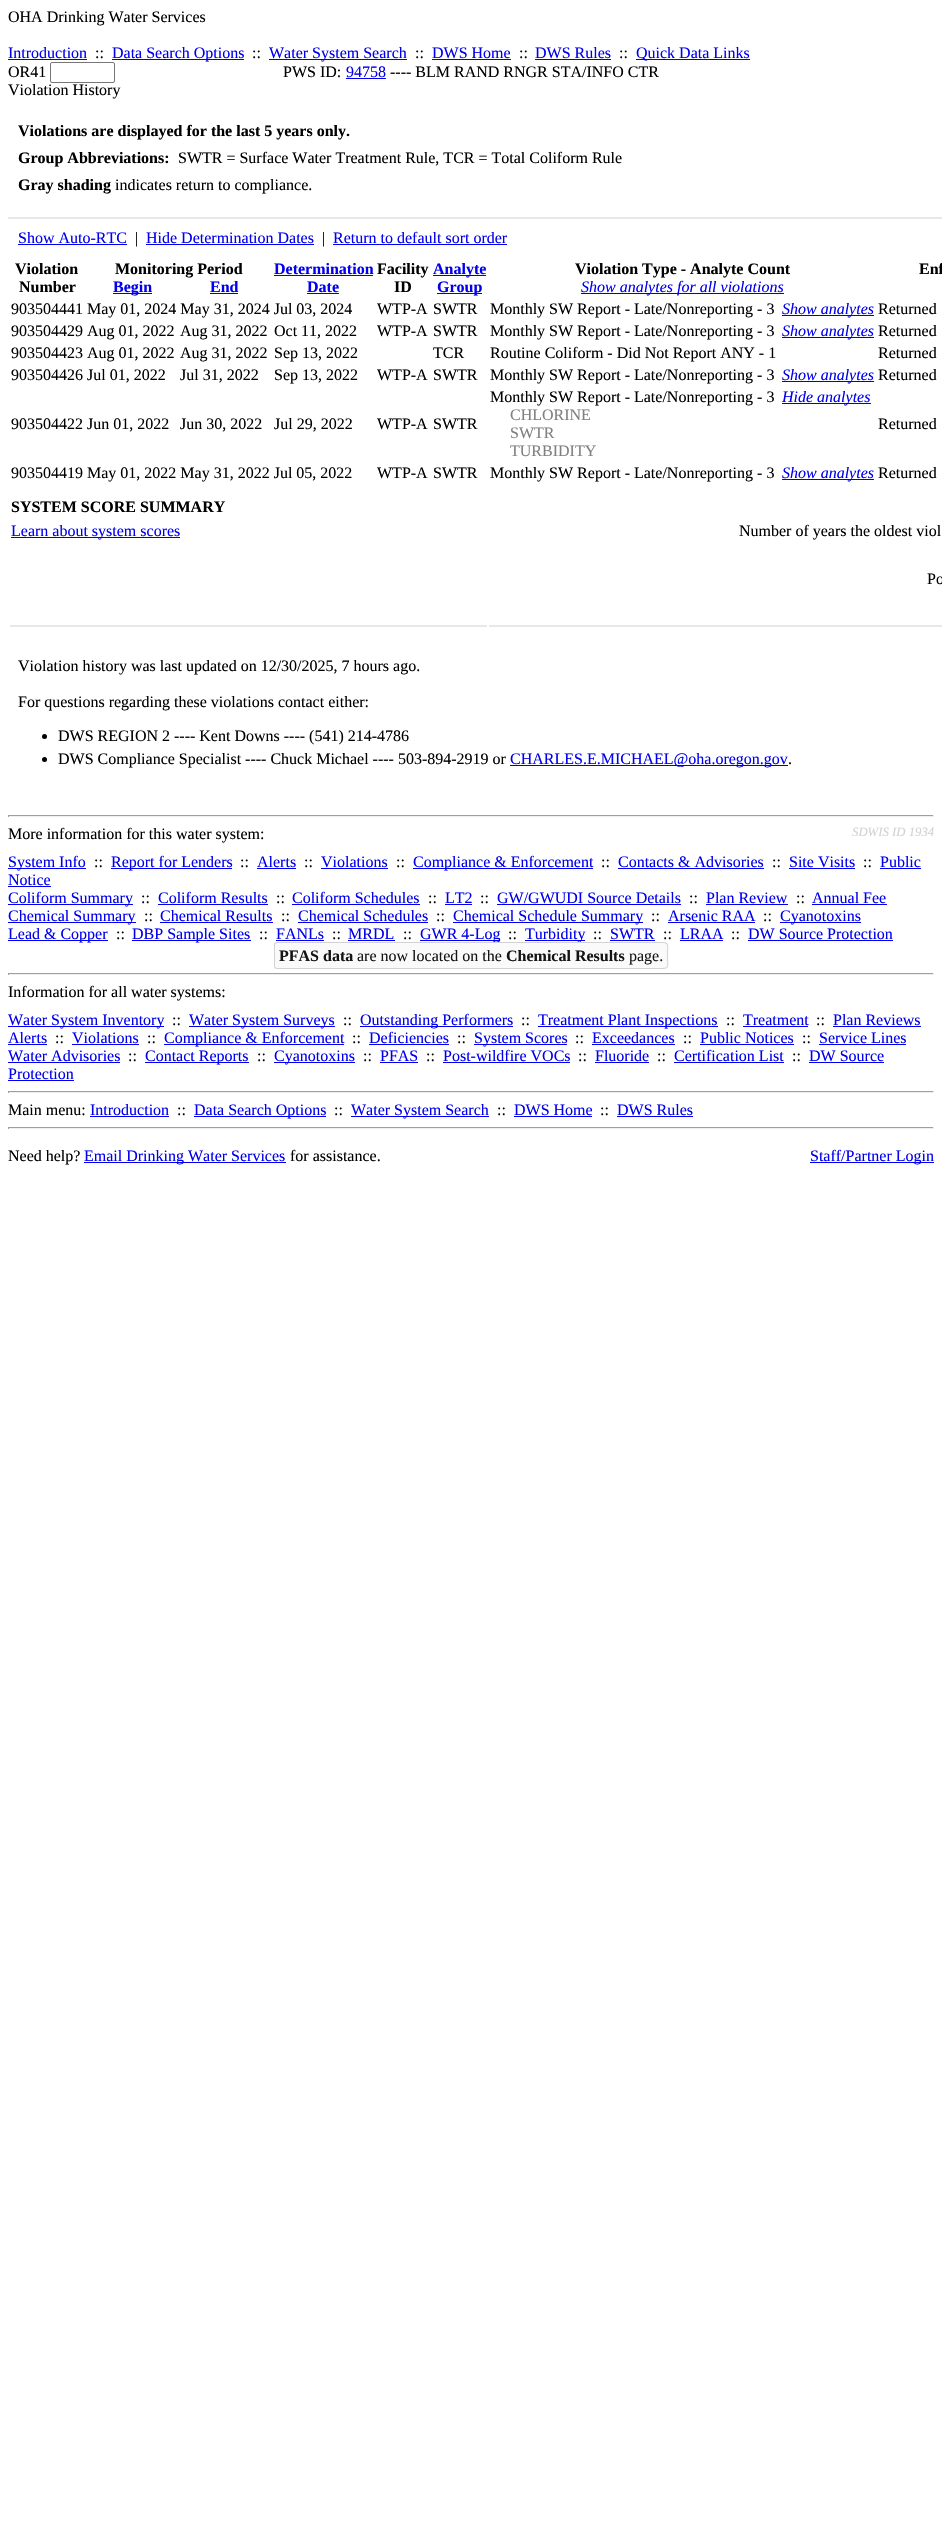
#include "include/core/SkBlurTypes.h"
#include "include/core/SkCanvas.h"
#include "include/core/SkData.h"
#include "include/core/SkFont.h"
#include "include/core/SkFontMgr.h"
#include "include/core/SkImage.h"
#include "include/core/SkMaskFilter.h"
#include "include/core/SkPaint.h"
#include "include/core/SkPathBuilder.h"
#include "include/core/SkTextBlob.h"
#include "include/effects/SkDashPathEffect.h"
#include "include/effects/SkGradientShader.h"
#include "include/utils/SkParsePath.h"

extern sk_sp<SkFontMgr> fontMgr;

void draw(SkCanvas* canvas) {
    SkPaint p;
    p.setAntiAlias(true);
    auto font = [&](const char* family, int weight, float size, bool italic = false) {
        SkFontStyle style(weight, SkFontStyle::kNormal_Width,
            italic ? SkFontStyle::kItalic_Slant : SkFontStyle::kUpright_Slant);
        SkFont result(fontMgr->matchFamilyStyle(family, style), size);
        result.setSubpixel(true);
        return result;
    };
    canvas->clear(0xFFFFFFFF);
    auto font1 = font("Liberation Serif", 400, 16);
    p.setColor(0xFF000000);
    canvas->drawString("OHA Drinking Water Services", 8, 22, font1, p);
    p.setColor(0xFF0000EE);
    canvas->drawString("Introduction", 8, 58, font1, p);
    canvas->drawRect(SkRect::MakeLTRB(8, 59, 87, 60), p);
    p.setColor(0xFF000000);
    canvas->drawString("::", 95, 58, font1, p);
    p.setColor(0xFF0000EE);
    canvas->drawRect(SkRect::MakeLTRB(112, 59, 244, 60), p);
    canvas->drawString("Data Search Options", 112, 58, font1, p);
    p.setColor(0xFF000000);
    canvas->drawString("::", 252, 58, font1, p);
    p.setColor(0xFF0000EE);
    canvas->drawRect(SkRect::MakeLTRB(269, 59, 407, 60), p);
    canvas->drawString("Water System Search", 269, 58, font1, p);
    p.setColor(0xFF000000);
    canvas->drawString("::", 415, 58, font1, p);
    p.setColor(0xFF0000EE);
    canvas->drawString("DWS Home", 432, 58, font1, p);
    canvas->drawRect(SkRect::MakeLTRB(432, 59, 511, 60), p);
    p.setColor(0xFF000000);
    canvas->drawString("::", 519, 58, font1, p);
    p.setColor(0xFF0000EE);
    canvas->drawString("DWS Rules", 535, 58, font1, p);
    canvas->drawRect(SkRect::MakeLTRB(535, 59, 611, 60), p);
    p.setColor(0xFF000000);
    canvas->drawString("::", 619, 58, font1, p);
    p.setColor(0xFF0000EE);
    canvas->drawRect(SkRect::MakeLTRB(636, 59, 750, 60), p);
    canvas->drawString("Quick Data Links", 636, 58, font1, p);
    p.setColor(0xFF000000);
    canvas->drawString("OR41", 8, 77, font1, p);
    p.setStyle(SkPaint::kStroke_Style);
    p.setStrokeWidth(1);
    p.setColor(0xFF767676);
    canvas->drawRoundRect(SkRect::MakeLTRB(50.5f, 62.5f, 114.5f, 82.5f), 1.5f, 1.5f, p);
    p.setStyle(SkPaint::kFill_Style);
    p.setColor(0xFF000000);
    canvas->drawString("PWS ID:", 283, 77, font1, p);
    p.setColor(0xFF0000EE);
    canvas->drawString("94758", 346, 77, font1, p);
    canvas->drawRect(SkRect::MakeLTRB(346, 78, 386, 79), p);
    p.setColor(0xFF000000);
    canvas->drawString("---- BLM RAND RNGR STA/INFO CTR", 390, 77, font1, p);
    canvas->drawString("Violation History", 8, 95, font1, p);
    auto font2 = font("Liberation Serif", 700, 16);
    canvas->drawString("Violations are displayed for the last 5 years only.", 18, 136, font2, p);
    canvas->drawString("Group Abbreviations:", 18, 163, font2, p);
    canvas->drawString("SWTR = Surface Water Treatment Rule, TCR = Total Coliform Rule", 178, 163, font1, p);
    canvas->drawString("Gray shading", 18, 190, font2, p);
    canvas->drawString("indicates return to compliance.", 115, 190, font1, p);
    p.setColor(0xFFE8E8E8);
    canvas->drawRect(SkRect::MakeLTRB(8, 217, 942, 219), p);
    p.setColor(0xFF0000EE);
    canvas->drawString("Show Auto-RTC", 18, 243, font1, p);
    canvas->drawRect(SkRect::MakeLTRB(18, 244, 127, 245), p);
    p.setColor(0xFF000000);
    canvas->drawString("|", 135, 243, font1, p);
    p.setColor(0xFF0000EE);
    canvas->drawString("Hide Determination Dates", 146, 243, font1, p);
    canvas->drawRect(SkRect::MakeLTRB(146, 244, 314, 245), p);
    p.setColor(0xFF000000);
    canvas->drawString("|", 322, 243, font1, p);
    p.setColor(0xFF0000EE);
    canvas->drawString("Return to default sort order", 333, 243, font1, p);
    canvas->drawRect(SkRect::MakeLTRB(333, 244, 507, 245), p);
    p.setColor(0xFF000000);
    {
        const struct { const char* s; float x, y; } items[] = {
            {"Violation", 15, 274},
            {"Number", 19, 292},
            {"Monitoring Period", 115, 274},
        };
        for (auto [s, x, y] : items) {
            canvas->drawString(s, x, y, font2, p);
        }
    }
    p.setColor(0xFF0000EE);
    canvas->drawRect(SkRect::MakeLTRB(113, 293, 152, 294), p);
    canvas->drawString("Begin", 113, 292, font2, p);
    canvas->drawString("End", 210, 292, font2, p);
    canvas->drawRect(SkRect::MakeLTRB(210, 293, 238, 294), p);
    canvas->drawString("Determination", 274, 274, font2, p);
    canvas->drawRect(SkRect::MakeLTRB(274, 275, 373, 276), p);
    canvas->drawString("Date", 307, 292, font2, p);
    canvas->drawRect(SkRect::MakeLTRB(307, 293, 339, 294), p);
    p.setColor(0xFF000000);
    canvas->drawString("Facility", 377, 274, font2, p);
    canvas->drawString("ID", 394, 292, font2, p);
    p.setColor(0xFF0000EE);
    canvas->drawRect(SkRect::MakeLTRB(433, 275, 486, 276), p);
    canvas->drawString("Analyte", 433, 274, font2, p);
    canvas->drawRect(SkRect::MakeLTRB(437, 293, 482, 294), p);
    canvas->drawString("Group", 437, 292, font2, p);
    p.setColor(0xFF000000);
    canvas->drawString("Violation Type - Analyte Count", 575, 274, font2, p);
    p.setColor(0xFF0000EE);
    canvas->drawRect(SkRect::MakeLTRB(581, 293, 784, 294), p);
    auto font3 = font("Liberation Serif", 400, 16, true);
    canvas->drawString("Show analytes for all violations", 581, 292, font3, p);
    p.setColor(0xFF000000);
    canvas->drawString("Enf", 919, 274, font2, p);
    {
        const struct { const char* s; float x, y; } items[] = {
            {"903504441 May 01, 2024 May 31, 2024 Jul 03, 2024", 11, 314},
            {"WTP-A", 377, 314},
            {"SWTR", 433, 314},
            {"Monthly SW Report - Late/Nonreporting - 3", 490, 314},
        };
        for (auto [s, x, y] : items) {
            canvas->drawString(s, x, y, font1, p);
        }
    }
    p.setColor(0xFF0000EE);
    canvas->drawRect(SkRect::MakeLTRB(782, 315, 874, 316), p);
    canvas->drawString("Show analytes", 782, 314, font3, p);
    p.setColor(0xFF000000);
    {
        const struct { const char* s; float x, y; } items[] = {
            {"Returned", 878, 314},
            {"903504429 Aug 01, 2022", 11, 336},
            {"Aug 31, 2022", 180, 336},
            {"Oct 11, 2022", 274, 336},
            {"WTP-A", 377, 336},
            {"SWTR", 433, 336},
            {"Monthly SW Report - Late/Nonreporting - 3", 490, 336},
        };
        for (auto [s, x, y] : items) {
            canvas->drawString(s, x, y, font1, p);
        }
    }
    p.setColor(0xFF0000EE);
    canvas->drawRect(SkRect::MakeLTRB(782, 337, 874, 338), p);
    canvas->drawString("Show analytes", 782, 336, font3, p);
    p.setColor(0xFF000000);
    {
        const struct { const char* s; float x, y; } items[] = {
            {"Returned", 878, 336},
            {"903504423 Aug 01, 2022", 11, 358},
            {"Aug 31, 2022", 180, 358},
            {"Sep 13, 2022", 274, 358},
            {"TCR", 433, 358},
            {"Routine Coliform - Did Not Report ANY - 1", 490, 358},
            {"Returned", 878, 358},
            {"903504426 Jul 01, 2022", 11, 380},
            {"Jul 31, 2022", 180, 380},
            {"Sep 13, 2022", 274, 380},
            {"WTP-A", 377, 380},
            {"SWTR", 433, 380},
            {"Monthly SW Report - Late/Nonreporting - 3", 490, 380},
        };
        for (auto [s, x, y] : items) {
            canvas->drawString(s, x, y, font1, p);
        }
    }
    p.setColor(0xFF0000EE);
    canvas->drawRect(SkRect::MakeLTRB(782, 381, 874, 382), p);
    canvas->drawString("Show analytes", 782, 380, font3, p);
    p.setColor(0xFF000000);
    {
        const struct { const char* s; float x, y; } items[] = {
            {"Returned", 878, 380},
            {"903504422 Jun 01, 2022", 11, 429},
            {"Jun 30, 2022", 180, 429},
            {"Jul 29, 2022", 274, 429},
            {"WTP-A", 377, 429},
            {"SWTR", 433, 429},
            {"Monthly SW Report - Late/Nonreporting - 3", 490, 402},
        };
        for (auto [s, x, y] : items) {
            canvas->drawString(s, x, y, font1, p);
        }
    }
    p.setColor(0xFF0000EE);
    canvas->drawRect(SkRect::MakeLTRB(782, 403, 871, 404), p);
    canvas->drawString("Hide analytes", 782, 402, font3, p);
    p.setColor(0xFF808080);
    {
        const struct { const char* s; float x, y; } items[] = {
            {"CHLORINE", 510, 420},
            {"SWTR", 510, 438},
            {"TURBIDITY", 510, 456},
        };
        for (auto [s, x, y] : items) {
            canvas->drawString(s, x, y, font1, p);
        }
    }
    p.setColor(0xFF000000);
    {
        const struct { const char* s; float x, y; } items[] = {
            {"Returned", 878, 429},
            {"903504419 May 01, 2022 May 31, 2022 Jul 05, 2022", 11, 478},
            {"WTP-A", 377, 478},
            {"SWTR", 433, 478},
            {"Monthly SW Report - Late/Nonreporting - 3", 490, 478},
        };
        for (auto [s, x, y] : items) {
            canvas->drawString(s, x, y, font1, p);
        }
    }
    p.setColor(0xFF0000EE);
    canvas->drawRect(SkRect::MakeLTRB(782, 479, 874, 480), p);
    canvas->drawString("Show analytes", 782, 478, font3, p);
    p.setColor(0xFF000000);
    canvas->drawString("Returned", 878, 478, font1, p);
    p.setColor(0xFFE8E8E8);
    canvas->drawRect(SkRect::MakeLTRB(10, 625, 487, 627), p);
    p.setColor(0xFF000000);
    canvas->drawString("SYSTEM SCORE SUMMARY", 11, 512, font2, p);
    p.setColor(0xFF0000EE);
    canvas->drawRect(SkRect::MakeLTRB(11, 537, 180, 538), p);
    canvas->drawString("Learn about system scores", 11, 536, font1, p);
    p.setColor(0xFFE8E8E8);
    canvas->drawRect(SkRect::MakeLTRB(489, 625, 942, 627), p);
    p.setColor(0xFF000000);
    {
        const struct { const char* s; float x, y; } items[] = {
            {"Number of years the oldest viol", 739, 536},
            {"Po", 927, 584},
            {"Violation history was last updated on 12/30/2025, 7 hours ago.", 18, 671},
            {"For questions regarding these violations contact either:", 18, 707},
        };
        for (auto [s, x, y] : items) {
            canvas->drawString(s, x, y, font1, p);
        }
    }
    canvas->drawCircle(44.5f, 736.5f, 2.5f, p);
    canvas->drawString("DWS REGION 2 ---- Kent Downs ---- (541) 214-4786", 58, 741, font1, p);
    canvas->drawCircle(44.5f, 759.5f, 2.5f, p);
    canvas->drawString("DWS Compliance Specialist ---- Chuck Michael ---- 503-894-2919 or", 58, 764, font1, p);
    p.setColor(0xFF0000EE);
    canvas->drawRect(SkRect::MakeLTRB(510, 765, 788, 766), p);
    canvas->drawString("CHARLES.E.MICHAEL@oha.oregon.gov", 510, 764, font1, p);
    p.setColor(0xFF000000);
    canvas->drawString(".", 788, 764, font1, p);
    {
        const struct { float l, t, r, b; SkColor color; } items[] = {
            {8, 815, 934, 816, 0xFF9F9F9F},
            {933, 815, 934, 817, 0xFFEEEEEE},
            {8, 816, 934, 817, 0xFFEEEEEE},
            {8, 815, 9, 817, 0xFF9F9F9F},
        };
        for (auto [l, t, r, b, color] : items) {
            p.setColor(color);
            canvas->drawRect(SkRect::MakeLTRB(l, t, r, b), p);
        }
    }
    p.setColor(0xFF000000);
    canvas->drawString("More information for this water system:", 8, 839, font1, p);
    auto font4 = font("Liberation Serif", 400, 12.75f, true);
    p.setColor(0xFFD3D3D3);
    canvas->drawString("SDWIS ID 1934", 852, 836, font4, p);
    p.setColor(0xFF0000EE);
    canvas->drawRect(SkRect::MakeLTRB(8, 868, 86, 869), p);
    canvas->drawString("System Info", 8, 867, font1, p);
    p.setColor(0xFF000000);
    canvas->drawString("::", 94, 867, font1, p);
    p.setColor(0xFF0000EE);
    canvas->drawRect(SkRect::MakeLTRB(111, 868, 232, 869), p);
    canvas->drawString("Report for Lenders", 111, 867, font1, p);
    p.setColor(0xFF000000);
    canvas->drawString("::", 240, 867, font1, p);
    p.setColor(0xFF0000EE);
    canvas->drawString("Alerts", 257, 867, font1, p);
    canvas->drawRect(SkRect::MakeLTRB(257, 868, 296, 869), p);
    p.setColor(0xFF000000);
    canvas->drawString("::", 304, 867, font1, p);
    p.setColor(0xFF0000EE);
    canvas->drawString("Violations", 321, 867, font1, p);
    canvas->drawRect(SkRect::MakeLTRB(321, 868, 388, 869), p);
    p.setColor(0xFF000000);
    canvas->drawString("::", 396, 867, font1, p);
    p.setColor(0xFF0000EE);
    canvas->drawRect(SkRect::MakeLTRB(413, 868, 593, 869), p);
    canvas->drawString("Compliance & Enforcement", 413, 867, font1, p);
    p.setColor(0xFF000000);
    canvas->drawString("::", 601, 867, font1, p);
    p.setColor(0xFF0000EE);
    canvas->drawString("Contacts & Advisories", 618, 867, font1, p);
    canvas->drawRect(SkRect::MakeLTRB(618, 868, 764, 869), p);
    p.setColor(0xFF000000);
    canvas->drawString("::", 772, 867, font1, p);
    p.setColor(0xFF0000EE);
    canvas->drawString("Site Visits", 789, 867, font1, p);
    canvas->drawRect(SkRect::MakeLTRB(789, 868, 855, 869), p);
    p.setColor(0xFF000000);
    canvas->drawString("::", 863, 867, font1, p);
    p.setColor(0xFF0000EE);
    canvas->drawString("Public", 880, 867, font1, p);
    canvas->drawRect(SkRect::MakeLTRB(880, 868, 921, 869), p);
    canvas->drawString("Notice", 8, 885, font1, p);
    canvas->drawRect(SkRect::MakeLTRB(8, 886, 51, 887), p);
    canvas->drawRect(SkRect::MakeLTRB(8, 904, 133, 905), p);
    canvas->drawString("Coliform Summary", 8, 903, font1, p);
    p.setColor(0xFF000000);
    canvas->drawString("::", 141, 903, font1, p);
    p.setColor(0xFF0000EE);
    canvas->drawString("Coliform Results", 158, 903, font1, p);
    canvas->drawRect(SkRect::MakeLTRB(158, 904, 268, 905), p);
    p.setColor(0xFF000000);
    canvas->drawString("::", 276, 903, font1, p);
    p.setColor(0xFF0000EE);
    canvas->drawString("Coliform Schedules", 292, 903, font1, p);
    canvas->drawRect(SkRect::MakeLTRB(292, 904, 420, 905), p);
    p.setColor(0xFF000000);
    canvas->drawString("::", 428, 903, font1, p);
    p.setColor(0xFF0000EE);
    canvas->drawString("LT2", 445, 903, font1, p);
    canvas->drawRect(SkRect::MakeLTRB(445, 904, 472, 905), p);
    p.setColor(0xFF000000);
    canvas->drawString("::", 480, 903, font1, p);
    p.setColor(0xFF0000EE);
    canvas->drawString("GW/GWUDI Source Details", 497, 903, font1, p);
    canvas->drawRect(SkRect::MakeLTRB(497, 904, 681, 905), p);
    p.setColor(0xFF000000);
    canvas->drawString("::", 689, 903, font1, p);
    p.setColor(0xFF0000EE);
    canvas->drawString("Plan Review", 706, 903, font1, p);
    canvas->drawRect(SkRect::MakeLTRB(706, 904, 788, 905), p);
    p.setColor(0xFF000000);
    canvas->drawString("::", 796, 903, font1, p);
    p.setColor(0xFF0000EE);
    canvas->drawString("Annual Fee", 812, 903, font1, p);
    canvas->drawRect(SkRect::MakeLTRB(812, 904, 887, 905), p);
    canvas->drawRect(SkRect::MakeLTRB(8, 922, 136, 923), p);
    canvas->drawString("Chemical Summary", 8, 921, font1, p);
    p.setColor(0xFF000000);
    canvas->drawString("::", 144, 921, font1, p);
    p.setColor(0xFF0000EE);
    canvas->drawString("Chemical Results", 160, 921, font1, p);
    canvas->drawRect(SkRect::MakeLTRB(160, 922, 273, 923), p);
    p.setColor(0xFF000000);
    canvas->drawString("::", 281, 921, font1, p);
    p.setColor(0xFF0000EE);
    canvas->drawString("Chemical Schedules", 298, 921, font1, p);
    canvas->drawRect(SkRect::MakeLTRB(298, 922, 428, 923), p);
    p.setColor(0xFF000000);
    canvas->drawString("::", 436, 921, font1, p);
    p.setColor(0xFF0000EE);
    canvas->drawRect(SkRect::MakeLTRB(453, 922, 643, 923), p);
    canvas->drawString("Chemical Schedule Summary", 453, 921, font1, p);
    p.setColor(0xFF000000);
    canvas->drawString("::", 651, 921, font1, p);
    p.setColor(0xFF0000EE);
    canvas->drawString("Arsenic RAA", 668, 921, font1, p);
    canvas->drawRect(SkRect::MakeLTRB(668, 922, 755, 923), p);
    p.setColor(0xFF000000);
    canvas->drawString("::", 763, 921, font1, p);
    p.setColor(0xFF0000EE);
    canvas->drawRect(SkRect::MakeLTRB(780, 922, 861, 923), p);
    canvas->drawString("Cyanotoxins", 780, 921, font1, p);
    canvas->drawRect(SkRect::MakeLTRB(8, 940, 108, 941), p);
    canvas->drawString("Lead & Copper", 8, 939, font1, p);
    p.setColor(0xFF000000);
    canvas->drawString("::", 116, 939, font1, p);
    p.setColor(0xFF0000EE);
    canvas->drawRect(SkRect::MakeLTRB(132, 940, 251, 941), p);
    canvas->drawString("DBP Sample Sites", 132, 939, font1, p);
    p.setColor(0xFF000000);
    canvas->drawString("::", 259, 939, font1, p);
    p.setColor(0xFF0000EE);
    canvas->drawString("FANLs", 276, 939, font1, p);
    canvas->drawRect(SkRect::MakeLTRB(276, 940, 324, 941), p);
    p.setColor(0xFF000000);
    canvas->drawString("::", 332, 939, font1, p);
    p.setColor(0xFF0000EE);
    canvas->drawString("MRDL", 348, 939, font1, p);
    canvas->drawRect(SkRect::MakeLTRB(348, 940, 395, 941), p);
    p.setColor(0xFF000000);
    canvas->drawString("::", 403, 939, font1, p);
    p.setColor(0xFF0000EE);
    canvas->drawRect(SkRect::MakeLTRB(420, 940, 500, 941), p);
    canvas->drawString("GWR 4-Log", 420, 939, font1, p);
    p.setColor(0xFF000000);
    canvas->drawString("::", 508, 939, font1, p);
    p.setColor(0xFF0000EE);
    canvas->drawRect(SkRect::MakeLTRB(525, 940, 585, 941), p);
    canvas->drawString("Turbidity", 525, 939, font1, p);
    p.setColor(0xFF000000);
    canvas->drawString("::", 593, 939, font1, p);
    p.setColor(0xFF0000EE);
    canvas->drawString("SWTR", 610, 939, font1, p);
    canvas->drawRect(SkRect::MakeLTRB(610, 940, 655, 941), p);
    p.setColor(0xFF000000);
    canvas->drawString("::", 663, 939, font1, p);
    p.setColor(0xFF0000EE);
    canvas->drawString("LRAA", 680, 939, font1, p);
    canvas->drawRect(SkRect::MakeLTRB(680, 940, 723, 941), p);
    p.setColor(0xFF000000);
    canvas->drawString("::", 731, 939, font1, p);
    p.setColor(0xFF0000EE);
    canvas->drawString("DW Source Protection", 748, 939, font1, p);
    canvas->drawRect(SkRect::MakeLTRB(748, 940, 893, 941), p);
    p.setColor(0xFFFAFAFA);
    canvas->drawPath(SkPathBuilder().moveTo(277, 942).lineTo(353, 942).lineTo(353, 969).lineTo(277, 969).cubicTo(275.5f, 969, 274, 967.5f, 274, 966).lineTo(274, 945).cubicTo(274, 943.5f, 275.5f, 942, 277, 942).close().detach(), p);
    p.setColor(0xFFD3D3D3);
    canvas->drawPath(SkPathBuilder(SkPathFillType::kEvenOdd).moveTo(277, 942).lineTo(353, 942).lineTo(353, 969).lineTo(277, 969).cubicTo(275, 969, 274, 968, 274, 966).lineTo(274, 945).cubicTo(274, 943, 275, 942, 277, 942).close().moveTo(277, 943).lineTo(353, 943).lineTo(353, 968).lineTo(277, 968).cubicTo(276, 968, 275, 967, 275, 966).lineTo(275, 945).cubicTo(275, 944, 276, 943, 277, 943).close().detach(), p);
    p.setColor(0xFFFAFAFA);
    canvas->drawRect(SkRect::MakeLTRB(353, 943, 625, 968), p);
    p.setColor(0xFF151515);
    canvas->drawString("PFAS data", 279, 961, font2, p);
    p.setColor(0xFFD3D3D3);
    canvas->drawRect(SkRect::MakeLTRB(353, 942, 625, 943), p);
    p.setColor(0xFF151515);
    canvas->drawString("are now located on the", 357, 961, font1, p);
    canvas->drawString("Chemical Results", 506, 961, font2, p);
    p.setColor(0xFFFAFAFA);
    canvas->drawPath(SkPathBuilder().moveTo(625, 942).lineTo(665, 942).cubicTo(666.5f, 942, 668, 943.5f, 668, 945).lineTo(668, 966).cubicTo(668, 967.5f, 666.5f, 969, 665, 969).lineTo(625, 969).close().detach(), p);
    p.setColor(0xFFD3D3D3);
    canvas->drawPath(SkPathBuilder(SkPathFillType::kEvenOdd).moveTo(625, 942).lineTo(658, 942).cubicTo(671, 942, 668, 943, 668, 956).cubicTo(668, 968, 671, 969, 658, 969).lineTo(625, 969).close().moveTo(625, 943).lineTo(658, 943).cubicTo(670, 943, 667, 943, 667, 956).cubicTo(667, 968, 670, 968, 658, 968).lineTo(625, 968).close().detach(), p);
    p.setColor(0xFF151515);
    canvas->drawString("page.", 629, 961, font1, p);
    {
        const struct { float l, t, r, b; SkColor color; } items[] = {
            {353, 968, 625, 969, 0xFFD3D3D3},
            {8, 973, 934, 974, 0xFF9F9F9F},
            {933, 973, 934, 975, 0xFFEEEEEE},
            {8, 974, 934, 975, 0xFFEEEEEE},
            {8, 973, 9, 975, 0xFF9F9F9F},
        };
        for (auto [l, t, r, b, color] : items) {
            p.setColor(color);
            canvas->drawRect(SkRect::MakeLTRB(l, t, r, b), p);
        }
    }
    p.setColor(0xFF000000);
    canvas->drawString("Information for all water systems:", 8, 997, font1, p);
    p.setColor(0xFF0000EE);
    canvas->drawRect(SkRect::MakeLTRB(8, 1026, 164, 1027), p);
    canvas->drawString("Water System Inventory", 8, 1025, font1, p);
    p.setColor(0xFF000000);
    canvas->drawString("::", 172, 1025, font1, p);
    p.setColor(0xFF0000EE);
    canvas->drawRect(SkRect::MakeLTRB(189, 1026, 335, 1027), p);
    canvas->drawString("Water System Surveys", 189, 1025, font1, p);
    p.setColor(0xFF000000);
    canvas->drawString("::", 343, 1025, font1, p);
    p.setColor(0xFF0000EE);
    canvas->drawRect(SkRect::MakeLTRB(360, 1026, 513, 1027), p);
    canvas->drawString("Outstanding Performers", 360, 1025, font1, p);
    p.setColor(0xFF000000);
    canvas->drawString("::", 521, 1025, font1, p);
    p.setColor(0xFF0000EE);
    canvas->drawRect(SkRect::MakeLTRB(538, 1026, 718, 1027), p);
    canvas->drawString("Treatment Plant Inspections", 538, 1025, font1, p);
    p.setColor(0xFF000000);
    canvas->drawString("::", 726, 1025, font1, p);
    p.setColor(0xFF0000EE);
    canvas->drawString("Treatment", 743, 1025, font1, p);
    canvas->drawRect(SkRect::MakeLTRB(743, 1026, 808, 1027), p);
    p.setColor(0xFF000000);
    canvas->drawString("::", 816, 1025, font1, p);
    p.setColor(0xFF0000EE);
    canvas->drawString("Plan Reviews", 833, 1025, font1, p);
    canvas->drawRect(SkRect::MakeLTRB(833, 1026, 921, 1027), p);
    canvas->drawString("Alerts", 8, 1043, font1, p);
    canvas->drawRect(SkRect::MakeLTRB(8, 1044, 47, 1045), p);
    p.setColor(0xFF000000);
    canvas->drawString("::", 55, 1043, font1, p);
    p.setColor(0xFF0000EE);
    canvas->drawString("Violations", 72, 1043, font1, p);
    canvas->drawRect(SkRect::MakeLTRB(72, 1044, 139, 1045), p);
    p.setColor(0xFF000000);
    canvas->drawString("::", 147, 1043, font1, p);
    p.setColor(0xFF0000EE);
    canvas->drawRect(SkRect::MakeLTRB(164, 1044, 344, 1045), p);
    canvas->drawString("Compliance & Enforcement", 164, 1043, font1, p);
    p.setColor(0xFF000000);
    canvas->drawString("::", 352, 1043, font1, p);
    p.setColor(0xFF0000EE);
    canvas->drawString("Deficiencies", 369, 1043, font1, p);
    canvas->drawRect(SkRect::MakeLTRB(369, 1044, 449, 1045), p);
    p.setColor(0xFF000000);
    canvas->drawString("::", 457, 1043, font1, p);
    p.setColor(0xFF0000EE);
    canvas->drawRect(SkRect::MakeLTRB(474, 1044, 567, 1045), p);
    canvas->drawString("System Scores", 474, 1043, font1, p);
    p.setColor(0xFF000000);
    canvas->drawString("::", 575, 1043, font1, p);
    p.setColor(0xFF0000EE);
    canvas->drawString("Exceedances", 592, 1043, font1, p);
    canvas->drawRect(SkRect::MakeLTRB(592, 1044, 675, 1045), p);
    p.setColor(0xFF000000);
    canvas->drawString("::", 683, 1043, font1, p);
    p.setColor(0xFF0000EE);
    canvas->drawString("Public Notices", 700, 1043, font1, p);
    canvas->drawRect(SkRect::MakeLTRB(700, 1044, 794, 1045), p);
    p.setColor(0xFF000000);
    canvas->drawString("::", 802, 1043, font1, p);
    p.setColor(0xFF0000EE);
    canvas->drawString("Service Lines", 819, 1043, font1, p);
    canvas->drawRect(SkRect::MakeLTRB(819, 1044, 906, 1045), p);
    canvas->drawString("Water Advisories", 8, 1061, font1, p);
    canvas->drawRect(SkRect::MakeLTRB(8, 1062, 120, 1063), p);
    p.setColor(0xFF000000);
    canvas->drawString("::", 128, 1061, font1, p);
    p.setColor(0xFF0000EE);
    canvas->drawRect(SkRect::MakeLTRB(145, 1062, 249, 1063), p);
    canvas->drawString("Contact Reports", 145, 1061, font1, p);
    p.setColor(0xFF000000);
    canvas->drawString("::", 257, 1061, font1, p);
    p.setColor(0xFF0000EE);
    canvas->drawRect(SkRect::MakeLTRB(274, 1062, 355, 1063), p);
    canvas->drawString("Cyanotoxins", 274, 1061, font1, p);
    p.setColor(0xFF000000);
    canvas->drawString("::", 363, 1061, font1, p);
    p.setColor(0xFF0000EE);
    canvas->drawString("PFAS", 380, 1061, font1, p);
    canvas->drawRect(SkRect::MakeLTRB(380, 1062, 418, 1063), p);
    p.setColor(0xFF000000);
    canvas->drawString("::", 426, 1061, font1, p);
    p.setColor(0xFF0000EE);
    canvas->drawString("Post-wildfire VOCs", 443, 1061, font1, p);
    canvas->drawRect(SkRect::MakeLTRB(443, 1062, 570, 1063), p);
    p.setColor(0xFF000000);
    canvas->drawString("::", 578, 1061, font1, p);
    p.setColor(0xFF0000EE);
    canvas->drawString("Fluoride", 595, 1061, font1, p);
    canvas->drawRect(SkRect::MakeLTRB(595, 1062, 649, 1063), p);
    p.setColor(0xFF000000);
    canvas->drawString("::", 657, 1061, font1, p);
    p.setColor(0xFF0000EE);
    canvas->drawString("Certification List", 674, 1061, font1, p);
    canvas->drawRect(SkRect::MakeLTRB(674, 1062, 784, 1063), p);
    p.setColor(0xFF000000);
    canvas->drawString("::", 792, 1061, font1, p);
    p.setColor(0xFF0000EE);
    canvas->drawString("DW Source", 809, 1061, font1, p);
    canvas->drawRect(SkRect::MakeLTRB(809, 1062, 884, 1063), p);
    canvas->drawString("Protection", 8, 1079, font1, p);
    {
        const struct { float l, t, r, b; SkColor color; } items[] = {
            {8, 1080, 74, 1081, 0xFF0000EE},
            {8, 1091, 934, 1092, 0xFF9F9F9F},
            {933, 1091, 934, 1093, 0xFFEEEEEE},
            {8, 1092, 934, 1093, 0xFFEEEEEE},
            {8, 1091, 9, 1093, 0xFF9F9F9F},
        };
        for (auto [l, t, r, b, color] : items) {
            p.setColor(color);
            canvas->drawRect(SkRect::MakeLTRB(l, t, r, b), p);
        }
    }
    p.setColor(0xFF000000);
    canvas->drawString("Main menu:", 8, 1115, font1, p);
    p.setColor(0xFF0000EE);
    canvas->drawString("Introduction", 90, 1115, font1, p);
    canvas->drawRect(SkRect::MakeLTRB(90, 1116, 169, 1117), p);
    p.setColor(0xFF000000);
    canvas->drawString("::", 177, 1115, font1, p);
    p.setColor(0xFF0000EE);
    canvas->drawRect(SkRect::MakeLTRB(194, 1116, 326, 1117), p);
    canvas->drawString("Data Search Options", 194, 1115, font1, p);
    p.setColor(0xFF000000);
    canvas->drawString("::", 334, 1115, font1, p);
    p.setColor(0xFF0000EE);
    canvas->drawRect(SkRect::MakeLTRB(351, 1116, 489, 1117), p);
    canvas->drawString("Water System Search", 351, 1115, font1, p);
    p.setColor(0xFF000000);
    canvas->drawString("::", 497, 1115, font1, p);
    p.setColor(0xFF0000EE);
    canvas->drawString("DWS Home", 514, 1115, font1, p);
    canvas->drawRect(SkRect::MakeLTRB(514, 1116, 592, 1117), p);
    p.setColor(0xFF000000);
    canvas->drawString("::", 600, 1115, font1, p);
    p.setColor(0xFF0000EE);
    canvas->drawString("DWS Rules", 617, 1115, font1, p);
    {
        const struct { float l, t, r, b; SkColor color; } items[] = {
            {617, 1116, 693, 1117, 0xFF0000EE},
            {8, 1127, 934, 1128, 0xFF9F9F9F},
            {933, 1127, 934, 1129, 0xFFEEEEEE},
            {8, 1128, 934, 1129, 0xFFEEEEEE},
            {8, 1127, 9, 1129, 0xFF9F9F9F},
        };
        for (auto [l, t, r, b, color] : items) {
            p.setColor(color);
            canvas->drawRect(SkRect::MakeLTRB(l, t, r, b), p);
        }
    }
    p.setColor(0xFF000000);
    canvas->drawString("Need help?", 8, 1161, font1, p);
    p.setColor(0xFF0000EE);
    canvas->drawRect(SkRect::MakeLTRB(84, 1162, 286, 1163), p);
    canvas->drawString("Email Drinking Water Services", 84, 1161, font1, p);
    p.setColor(0xFF000000);
    canvas->drawString("for assistance.", 290, 1161, font1, p);
    p.setColor(0xFF0000EE);
    canvas->drawRect(SkRect::MakeLTRB(810, 1162, 934, 1163), p);
    canvas->drawString("Staff/Partner Login", 810, 1161, font1, p);
}
